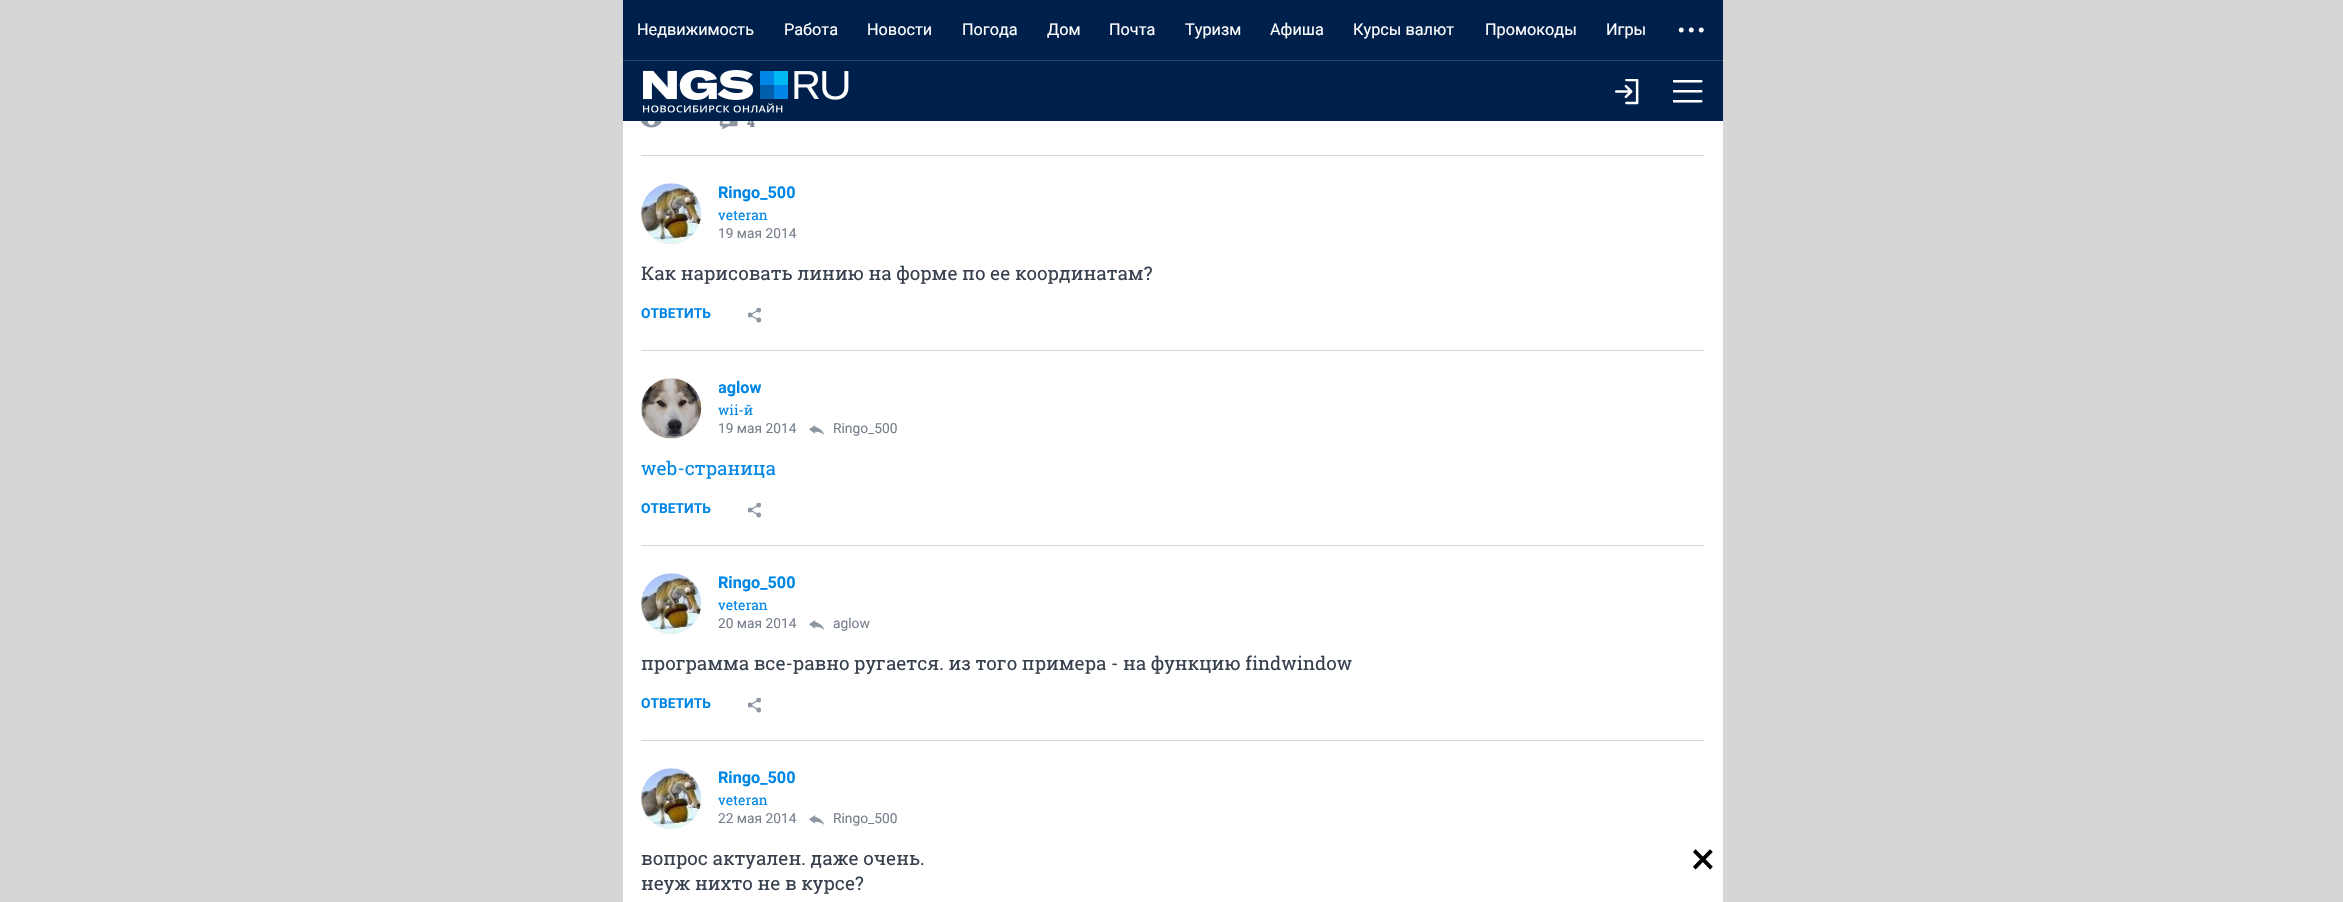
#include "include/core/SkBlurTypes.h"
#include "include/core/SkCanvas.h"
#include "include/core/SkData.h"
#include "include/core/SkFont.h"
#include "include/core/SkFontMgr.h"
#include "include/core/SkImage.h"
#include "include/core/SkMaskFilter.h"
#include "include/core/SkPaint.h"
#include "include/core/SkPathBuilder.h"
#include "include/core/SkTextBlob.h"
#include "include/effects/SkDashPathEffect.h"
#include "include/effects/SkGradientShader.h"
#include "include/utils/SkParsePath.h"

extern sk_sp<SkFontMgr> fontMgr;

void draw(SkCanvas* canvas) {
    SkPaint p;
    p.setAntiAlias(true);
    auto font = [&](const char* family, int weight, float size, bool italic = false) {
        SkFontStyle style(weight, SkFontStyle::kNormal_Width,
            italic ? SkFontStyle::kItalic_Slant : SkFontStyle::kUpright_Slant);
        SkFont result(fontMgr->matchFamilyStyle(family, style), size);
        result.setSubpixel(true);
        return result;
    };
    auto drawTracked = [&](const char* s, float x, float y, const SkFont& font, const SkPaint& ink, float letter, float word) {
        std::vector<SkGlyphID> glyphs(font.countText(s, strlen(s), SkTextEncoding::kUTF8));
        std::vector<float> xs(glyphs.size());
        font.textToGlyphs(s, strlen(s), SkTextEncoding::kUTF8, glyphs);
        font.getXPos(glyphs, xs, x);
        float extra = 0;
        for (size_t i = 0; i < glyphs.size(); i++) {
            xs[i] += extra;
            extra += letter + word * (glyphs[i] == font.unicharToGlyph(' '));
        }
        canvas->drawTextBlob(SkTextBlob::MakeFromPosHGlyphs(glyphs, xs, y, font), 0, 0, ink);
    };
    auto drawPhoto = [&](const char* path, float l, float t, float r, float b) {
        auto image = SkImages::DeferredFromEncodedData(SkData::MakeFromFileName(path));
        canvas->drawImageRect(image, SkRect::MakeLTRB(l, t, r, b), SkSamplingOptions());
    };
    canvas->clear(0xFFD6D6D6);
    {
        const struct { float l, t, r, b; SkColor color; } items[] = {
            {623, 121, 1723, 902, 0xFFFFFFFF},
            {623, 0, 1723, 60, 0xFF00204C},
            {623, 60, 1723, 61, 0xFF294469},
        };
        for (auto [l, t, r, b, color] : items) {
            p.setColor(color);
            canvas->drawRect(SkRect::MakeLTRB(l, t, r, b), p);
        }
    }
    auto font1 = font("Roboto", 400, 16.25f);
    p.setColor(0xFFFFFFFF);
    {
        const struct { const char* s; float x, y; } items[] = {
            {"Недвижимость", 637, 35},
            {"Работа", 784, 35},
            {"Новости", 867, 35},
            {"Погода", 962, 35},
            {"Дом", 1047, 35},
            {"Почта", 1109, 35},
            {"Туризм", 1185, 35},
            {"Афиша", 1270, 35},
            {"Курсы валют", 1353, 35},
            {"Промокоды", 1485, 35},
            {"Игры", 1606, 35},
        };
        for (auto [s, x, y] : items) {
            canvas->drawString(s, x, y, font1, p);
        }
    }
    drawPhoto("media/1.png", 1678, 27, 1704, 33);
    auto font2 = font("Roboto Slab", 700, 13.75f);
    p.setColor(0xFF77808C);
    drawTracked("4", 747, 127, font2, p, 1, 0);
    p.setColor(0xFF00204C);
    canvas->drawRect(SkRect::MakeLTRB(623, 61, 1723, 121), p);
    drawPhoto("media/2.png", 643, 70, 849, 113);
    drawPhoto("media/3.png", 1615, 79, 1639, 105);
    drawPhoto("media/4.png", 1673, 80, 1703, 103);
    drawPhoto("media/5.png", 641, 121, 662, 128);
    drawPhoto("media/6.png", 719, 121, 738, 130);
    p.setColor(0xFFD6D6D6);
    canvas->drawRect(SkRect::MakeLTRB(641, 155, 1704, 156), p);
    p.setColor(0xFFEBEBEB);
    canvas->drawCircle(671, 214, 30, p);
    drawPhoto("media/7.png", 641, 183, 702, 243);
    auto font3 = font("Roboto", 700, 16.25f);
    p.setColor(0xFF0086E5);
    canvas->drawString("Ringo_500", 718, 198, font3, p);
    auto font4 = font("Roboto Slab", 400, 13.75f);
    canvas->drawString("veteran", 718, 220, font4, p);
    auto font5 = font("Roboto", 400, 13.75f);
    p.setColor(0xFF77808C);
    canvas->drawString("19 мая 2014", 718, 238, font5, p);
    auto font6 = font("Roboto Slab", 400, 18.75f);
    p.setColor(0xFF37404D);
    canvas->drawString("Как нарисовать линию на форме по ее координатам?", 641, 280, font6, p);
    auto font7 = font("Roboto", 700, 13.75f);
    p.setColor(0xFF0086E5);
    canvas->drawString("ОТВЕТИТЬ", 641, 318, font7, p);
    drawPhoto("media/8.png", 748, 308, 761, 323);
    p.setColor(0xFFD6D6D6);
    canvas->drawRect(SkRect::MakeLTRB(641, 350, 1704, 351), p);
    p.setColor(0xFFEBEBEB);
    canvas->drawCircle(671, 409, 30, p);
    drawPhoto("media/9.png", 641, 378, 702, 439);
    canvas->save();
    canvas->clipRect(SkRect::MakeLTRB(719, 380, 898, 399));
    p.setColor(0xFF0086E5);
    canvas->drawString("aglow", 718, 393, font3, p);
    canvas->restore();
    canvas->drawString("wii-й", 718, 415, font4, p);
    p.setColor(0xFF77808C);
    canvas->drawString("19 мая 2014", 718, 433, font5, p);
    drawPhoto("media/10.png", 809, 425, 824, 435);
    canvas->drawString("Ringo_500", 833, 433, font5, p);
    p.setColor(0xFF0086E5);
    canvas->drawString("web-страница", 641, 475, font6, p);
    canvas->drawString("ОТВЕТИТЬ", 641, 513, font7, p);
    drawPhoto("media/8.png", 748, 503, 761, 518);
    p.setColor(0xFFD6D6D6);
    canvas->drawRect(SkRect::MakeLTRB(641, 545, 1704, 546), p);
    p.setColor(0xFFEBEBEB);
    canvas->drawCircle(671, 604, 30, p);
    drawPhoto("media/11.png", 641, 573, 702, 633);
    p.setColor(0xFF0086E5);
    canvas->drawString("Ringo_500", 718, 588, font3, p);
    canvas->drawString("veteran", 718, 610, font4, p);
    p.setColor(0xFF77808C);
    canvas->drawString("20 мая 2014", 718, 628, font5, p);
    drawPhoto("media/10.png", 809, 620, 824, 630);
    canvas->drawString("aglow", 833, 628, font5, p);
    p.setColor(0xFF37404D);
    canvas->drawString("программа все-равно ругается. из того примера - на функцию findwindow", 641, 670, font6, p);
    p.setColor(0xFF0086E5);
    canvas->drawString("ОТВЕТИТЬ", 641, 708, font7, p);
    drawPhoto("media/8.png", 748, 698, 761, 713);
    p.setColor(0xFFD6D6D6);
    canvas->drawRect(SkRect::MakeLTRB(641, 740, 1704, 741), p);
    p.setColor(0xFFEBEBEB);
    canvas->drawCircle(671, 799, 30, p);
    drawPhoto("media/7.png", 641, 768, 702, 828);
    p.setColor(0xFF0086E5);
    canvas->drawString("Ringo_500", 718, 783, font3, p);
    canvas->drawString("veteran", 718, 805, font4, p);
    p.setColor(0xFF77808C);
    canvas->drawString("22 мая 2014", 718, 823, font5, p);
    drawPhoto("media/10.png", 809, 815, 824, 825);
    canvas->drawString("Ringo_500", 833, 823, font5, p);
    p.setColor(0xFF37404D);
    canvas->drawString("вопрос актуален. даже очень.", 641, 865, font6, p);
    canvas->drawString("неуж нихто не в курсе?", 641, 890, font6, p);
    auto font8 = font("Roboto", 400, 45);
    p.setColor(0xFF000000);
    canvas->drawString("×", 1691, 874, font8, p);
}
